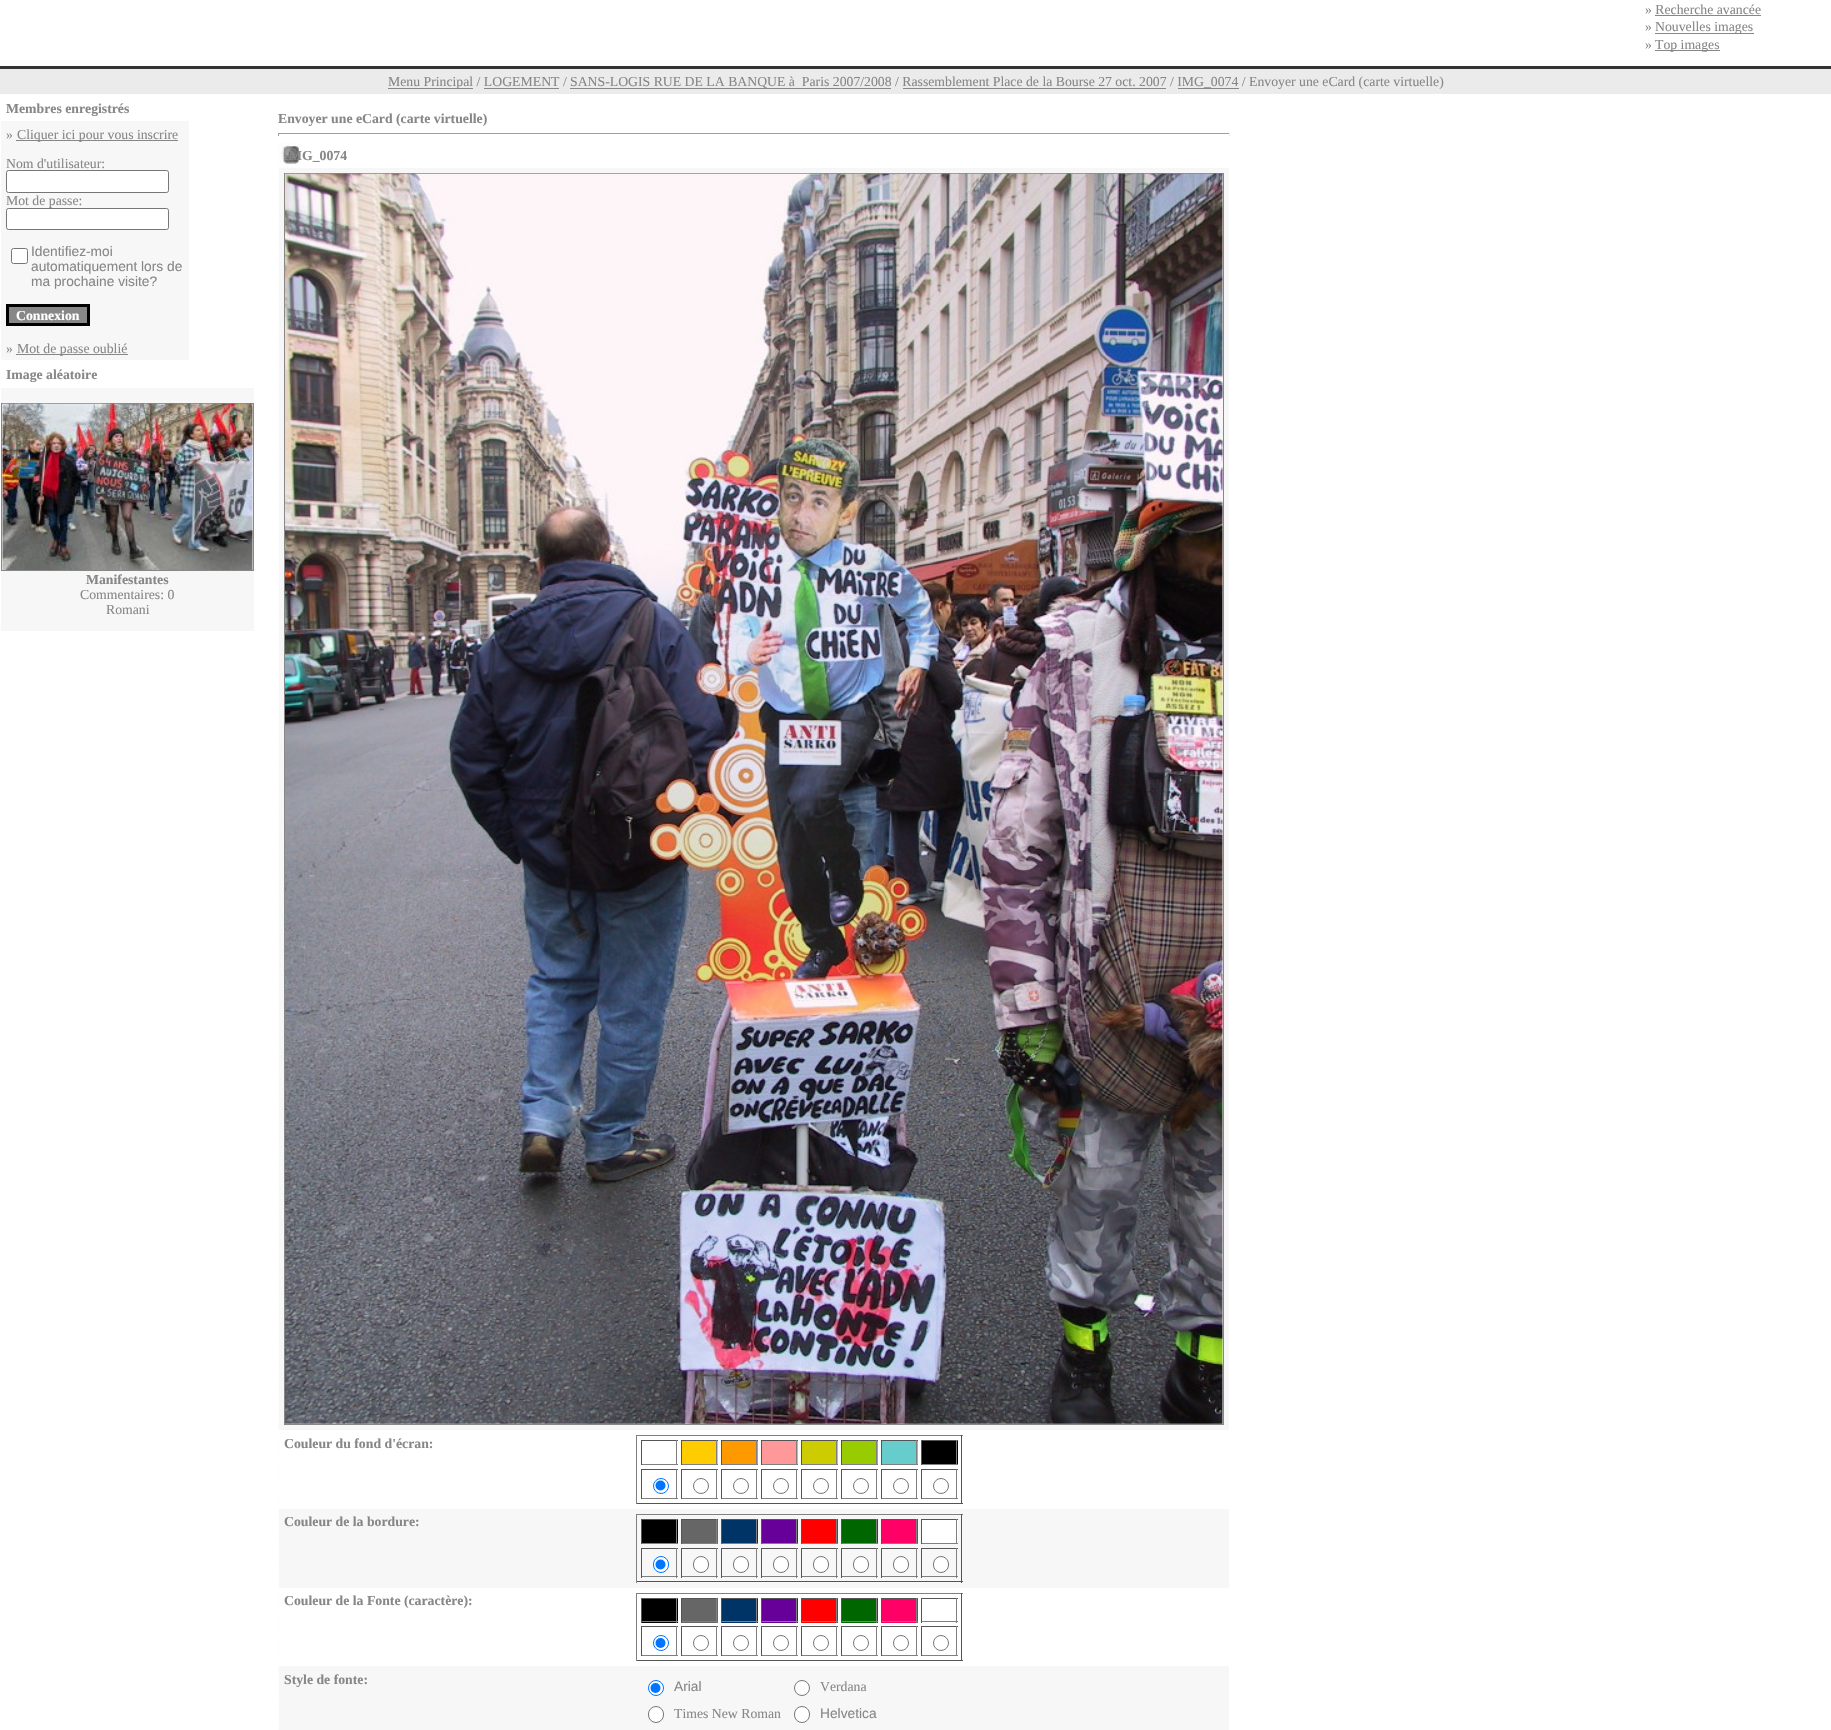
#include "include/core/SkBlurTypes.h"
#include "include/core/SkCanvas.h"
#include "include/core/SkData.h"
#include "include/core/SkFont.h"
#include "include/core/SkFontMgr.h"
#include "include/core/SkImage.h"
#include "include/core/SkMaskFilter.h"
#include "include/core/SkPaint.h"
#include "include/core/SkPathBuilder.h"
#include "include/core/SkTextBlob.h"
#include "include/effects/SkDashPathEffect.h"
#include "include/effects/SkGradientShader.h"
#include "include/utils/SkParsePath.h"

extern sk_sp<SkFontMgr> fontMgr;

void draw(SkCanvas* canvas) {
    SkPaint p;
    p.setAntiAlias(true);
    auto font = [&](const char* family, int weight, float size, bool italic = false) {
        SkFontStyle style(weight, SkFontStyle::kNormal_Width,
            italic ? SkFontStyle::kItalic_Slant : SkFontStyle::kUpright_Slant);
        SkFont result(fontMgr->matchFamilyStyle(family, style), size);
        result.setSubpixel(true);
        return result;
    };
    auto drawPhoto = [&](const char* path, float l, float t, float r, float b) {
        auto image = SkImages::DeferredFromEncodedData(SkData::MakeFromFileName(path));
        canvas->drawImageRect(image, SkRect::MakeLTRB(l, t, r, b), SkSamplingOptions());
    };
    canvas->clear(0xFFFFFFFF);
    auto font1 = font("Liberation Serif", 400, 13.75f);
    p.setColor(0xFF878787);
    canvas->drawString("» Recherche avancée", 1645, 14, font1, p);
    canvas->drawRect(SkRect::MakeLTRB(1655, 15, 1761, 16), p);
    canvas->drawString("»", 1645, 31, font1, p);
    canvas->drawRect(SkRect::MakeLTRB(1655, 33, 1754, 34), p);
    canvas->drawString("Nouvelles images", 1655, 31, font1, p);
    canvas->drawString("»", 1645, 49, font1, p);
    canvas->drawRect(SkRect::MakeLTRB(1655, 50, 1720, 51), p);
    canvas->drawString("Top images", 1655, 49, font1, p);
    {
        const struct { float l, t, r, b; SkColor color; } items[] = {
            {0, 66, 1831, 69, 0xFF333333},
            {0, 69, 1831, 94, 0xFFEBEBEB},
            {388, 88, 473, 89, 0xFF878787},
        };
        for (auto [l, t, r, b, color] : items) {
            p.setColor(color);
            canvas->drawRect(SkRect::MakeLTRB(l, t, r, b), p);
        }
    }
    canvas->drawString("Menu Principal / LOGEMENT /", 388, 86, font1, p);
    canvas->drawRect(SkRect::MakeLTRB(484, 88, 559, 89), p);
    canvas->drawRect(SkRect::MakeLTRB(570, 88, 891, 89), p);
    canvas->drawString("SANS-LOGIS RUE DE LA BANQUE à  Paris 2007/2008 / Rassemblement Place de la Bourse 27 oct. 2007 / IMG_0074 / Envoyer une eCard (carte virtuelle)", 570, 86, font1, p);
    canvas->drawRect(SkRect::MakeLTRB(903, 88, 1166, 89), p);
    canvas->drawRect(SkRect::MakeLTRB(1178, 88, 1239, 89), p);
    auto font2 = font("Liberation Serif", 700, 13.75f);
    canvas->drawString("Membres enregistrés", 6, 113, font2, p);
    p.setColor(0xFFF7F7F7);
    canvas->drawRect(SkRect::MakeLTRB(1, 121, 189, 360), p);
    p.setColor(0xFF878787);
    canvas->drawString("»", 6, 139, font1, p);
    canvas->drawRect(SkRect::MakeLTRB(16, 140, 178, 141), p);
    canvas->drawString("Cliquer ici pour vous inscrire", 17, 139, font1, p);
    canvas->drawString("Nom d'utilisateur:", 6, 168, font1, p);
    p.setColor(0xFFFFFFFF);
    canvas->drawRoundRect(SkRect::MakeLTRB(6.5f, 170.5f, 168.5f, 192.5f), 2, 2, p);
    p.setStyle(SkPaint::kStroke_Style);
    p.setStrokeWidth(1);
    p.setColor(0xFF767676);
    canvas->drawRoundRect(SkRect::MakeLTRB(6.5f, 170.5f, 168.5f, 192.5f), 2, 2, p);
    p.setStyle(SkPaint::kFill_Style);
    p.setColor(0xFF878787);
    canvas->drawString("Mot de passe:", 6, 205, font1, p);
    p.setColor(0xFFFFFFFF);
    canvas->drawRoundRect(SkRect::MakeLTRB(6.5f, 208.5f, 168.5f, 229.5f), 2, 2, p);
    p.setStyle(SkPaint::kStroke_Style);
    p.setColor(0xFF767676);
    canvas->drawRoundRect(SkRect::MakeLTRB(6.5f, 208.5f, 168.5f, 229.5f), 2, 2, p);
    p.setStyle(SkPaint::kFill_Style);
    p.setColor(0xFFFFFFFF);
    canvas->drawRoundRect(SkRect::MakeLTRB(11.5f, 248.5f, 27.5f, 263.5f), 2, 2, p);
    p.setStyle(SkPaint::kStroke_Style);
    p.setColor(0xFF767676);
    canvas->drawRoundRect(SkRect::MakeLTRB(11.5f, 248.5f, 27.5f, 263.5f), 2, 2, p);
    auto font3 = font("Liberation Sans", 400, 13.75f);
    p.setStyle(SkPaint::kFill_Style);
    p.setColor(0xFF878787);
    {
        const struct { const char* s; float x, y; } items[] = {
            {"Identifiez-moi", 31, 256},
            {"automatiquement lors de", 31, 271},
            {"ma prochaine visite?", 31, 286},
        };
        for (auto [s, x, y] : items) {
            canvas->drawString(s, x, y, font3, p);
        }
    }
    canvas->drawRect(SkRect::MakeLTRB(7.5f, 305.5f, 88.5f, 324.5f), p);
    p.setStyle(SkPaint::kStroke_Style);
    p.setStrokeWidth(3);
    p.setColor(0xFF000000);
    canvas->drawRect(SkRect::MakeLTRB(7.5f, 305.5f, 88.5f, 324.5f), p);
    p.setStyle(SkPaint::kFill_Style);
    p.setColor(0xFFFFFFFF);
    canvas->drawString("Connexion", 16, 320, font2, p);
    p.setColor(0xFF878787);
    canvas->drawString("»", 6, 353, font1, p);
    canvas->drawRect(SkRect::MakeLTRB(16, 354, 128, 355), p);
    canvas->drawString("Mot de passe oublié", 17, 353, font1, p);
    canvas->drawString("Image aléatoire", 6, 379, font2, p);
    p.setColor(0xFFF7F7F7);
    canvas->drawRect(SkRect::MakeLTRB(1, 388, 254, 631), p);
    p.setStyle(SkPaint::kStroke_Style);
    p.setStrokeWidth(1);
    p.setColor(0xFF878787);
    canvas->drawRect(SkRect::MakeLTRB(1.5f, 403.5f, 253.5f, 570.5f), p);
    drawPhoto("media/1.png", 2, 403, 253, 570);
    p.setStyle(SkPaint::kFill_Style);
    canvas->drawString("Manifestantes", 86, 584, font2, p);
    canvas->drawString("Commentaires: 0", 80, 599, font1, p);
    canvas->drawString("Romani", 106, 614, font1, p);
    canvas->drawString("Envoyer une eCard (carte virtuelle)", 278, 123, font2, p);
    {
        const struct { float l, t, r, b; SkColor color; } items[] = {
            {278, 133, 1230, 134, 0xFF9F9F9F},
            {1229, 133, 1230, 136, 0xFFEEEEEE},
            {278, 133, 279, 136, 0xFF9F9F9F},
        };
        for (auto [l, t, r, b, color] : items) {
            p.setColor(color);
            canvas->drawRect(SkRect::MakeLTRB(l, t, r, b), p);
        }
    }
    drawPhoto("media/2.png", 278, 142, 299, 1730);
    drawPhoto("media/3.png", 279, 144, 301, 165);
    p.setColor(0xFF878787);
    canvas->drawString("MG_0074", 289, 160, font2, p);
    p.setColor(0xFFF7F7F7);
    canvas->drawRect(SkRect::MakeLTRB(279, 168, 1229, 1430), p);
    p.setStyle(SkPaint::kStroke_Style);
    p.setColor(0xFF878787);
    canvas->drawRect(SkRect::MakeLTRB(284.5f, 173.5f, 1223.5f, 1424.5f), p);
    drawPhoto("media/4.png", 285, 173, 1223, 1424);
    p.setStyle(SkPaint::kFill_Style);
    p.setColor(0xFFFFFFFF);
    canvas->drawRect(SkRect::MakeLTRB(279, 1430, 299, 1509), p);
    p.setColor(0xFF878787);
    canvas->drawString("Couleur du fond d'écran:", 284, 1448, font2, p);
    {
        const struct { float l, t, r, b; SkColor color; } items[] = {
            {636, 1435, 963, 1436, 0xFF808080},
            {961, 1435, 962, 1504, 0xFF555555},
            {636, 1503, 963, 1504, 0xFF555555},
            {636, 1435, 637, 1504, 0xFF808080},
            {641, 1440, 678, 1441, 0xFF555555},
            {676, 1440, 677, 1465, 0xFF808080},
            {641, 1464, 678, 1465, 0xFF808080},
            {641, 1440, 642, 1465, 0xFF555555},
            {682, 1441, 718, 1464, 0xFFFFCC00},
            {681, 1440, 718, 1441, 0xFF555555},
            {716, 1440, 717, 1465, 0xFF808080},
            {681, 1464, 718, 1465, 0xFF808080},
            {681, 1440, 682, 1465, 0xFF555555},
            {722, 1441, 758, 1464, 0xFFFF9900},
            {721, 1440, 758, 1441, 0xFF555555},
            {756, 1440, 757, 1465, 0xFF808080},
            {721, 1464, 758, 1465, 0xFF808080},
            {721, 1440, 722, 1465, 0xFF555555},
            {762, 1441, 798, 1464, 0xFFFF9999},
            {761, 1440, 798, 1441, 0xFF555555},
            {796, 1440, 797, 1465, 0xFF808080},
            {761, 1464, 798, 1465, 0xFF808080},
            {761, 1440, 762, 1465, 0xFF555555},
            {802, 1441, 838, 1464, 0xFFCCCC00},
            {801, 1440, 838, 1441, 0xFF555555},
            {836, 1440, 837, 1465, 0xFF808080},
            {801, 1464, 838, 1465, 0xFF808080},
            {801, 1440, 802, 1465, 0xFF555555},
            {842, 1441, 878, 1464, 0xFF99CC00},
            {841, 1440, 878, 1441, 0xFF555555},
            {876, 1440, 877, 1465, 0xFF808080},
            {841, 1464, 878, 1465, 0xFF808080},
            {841, 1440, 842, 1465, 0xFF555555},
            {882, 1441, 918, 1464, 0xFF66CCCC},
            {881, 1440, 918, 1441, 0xFF555555},
            {916, 1440, 917, 1465, 0xFF808080},
            {881, 1464, 918, 1465, 0xFF808080},
            {881, 1440, 882, 1465, 0xFF555555},
            {922, 1441, 958, 1464, 0xFF000000},
            {921, 1440, 958, 1441, 0xFF555555},
            {956, 1440, 957, 1465, 0xFF808080},
            {921, 1464, 958, 1465, 0xFF808080},
            {921, 1440, 922, 1465, 0xFF555555},
            {641, 1469, 678, 1470, 0xFF555555},
            {676, 1469, 677, 1499, 0xFF808080},
            {641, 1498, 678, 1499, 0xFF808080},
            {641, 1469, 642, 1499, 0xFF555555},
        };
        for (auto [l, t, r, b, color] : items) {
            p.setColor(color);
            canvas->drawRect(SkRect::MakeLTRB(l, t, r, b), p);
        }
    }
    p.setStyle(SkPaint::kStroke_Style);
    p.setColor(0xFF0075FF);
    canvas->drawCircle(661, 1486, 7.5f, p);
    p.setStyle(SkPaint::kFill_Style);
    canvas->drawCircle(660.5f, 1485.5f, 5, p);
    {
        const struct { float l, t, r, b; SkColor color; } items[] = {
            {681, 1469, 718, 1470, 0xFF555555},
            {716, 1469, 717, 1499, 0xFF808080},
            {681, 1498, 718, 1499, 0xFF808080},
            {681, 1469, 682, 1499, 0xFF555555},
        };
        for (auto [l, t, r, b, color] : items) {
            p.setColor(color);
            canvas->drawRect(SkRect::MakeLTRB(l, t, r, b), p);
        }
    }
    p.setStyle(SkPaint::kStroke_Style);
    p.setColor(0xFF767676);
    canvas->drawCircle(701, 1486, 7.5f, p);
    p.setStyle(SkPaint::kFill_Style);
    {
        const struct { float l, t, r, b; SkColor color; } items[] = {
            {721, 1469, 758, 1470, 0xFF555555},
            {756, 1469, 757, 1499, 0xFF808080},
            {721, 1498, 758, 1499, 0xFF808080},
            {721, 1469, 722, 1499, 0xFF555555},
        };
        for (auto [l, t, r, b, color] : items) {
            p.setColor(color);
            canvas->drawRect(SkRect::MakeLTRB(l, t, r, b), p);
        }
    }
    p.setStyle(SkPaint::kStroke_Style);
    p.setColor(0xFF767676);
    canvas->drawCircle(741, 1486, 7.5f, p);
    p.setStyle(SkPaint::kFill_Style);
    {
        const struct { float l, t, r, b; SkColor color; } items[] = {
            {761, 1469, 798, 1470, 0xFF555555},
            {796, 1469, 797, 1499, 0xFF808080},
            {761, 1498, 798, 1499, 0xFF808080},
            {761, 1469, 762, 1499, 0xFF555555},
        };
        for (auto [l, t, r, b, color] : items) {
            p.setColor(color);
            canvas->drawRect(SkRect::MakeLTRB(l, t, r, b), p);
        }
    }
    p.setStyle(SkPaint::kStroke_Style);
    p.setColor(0xFF767676);
    canvas->drawCircle(781, 1486, 7.5f, p);
    p.setStyle(SkPaint::kFill_Style);
    {
        const struct { float l, t, r, b; SkColor color; } items[] = {
            {801, 1469, 838, 1470, 0xFF555555},
            {836, 1469, 837, 1499, 0xFF808080},
            {801, 1498, 838, 1499, 0xFF808080},
            {801, 1469, 802, 1499, 0xFF555555},
        };
        for (auto [l, t, r, b, color] : items) {
            p.setColor(color);
            canvas->drawRect(SkRect::MakeLTRB(l, t, r, b), p);
        }
    }
    p.setStyle(SkPaint::kStroke_Style);
    p.setColor(0xFF767676);
    canvas->drawCircle(821, 1486, 7.5f, p);
    p.setStyle(SkPaint::kFill_Style);
    {
        const struct { float l, t, r, b; SkColor color; } items[] = {
            {841, 1469, 878, 1470, 0xFF555555},
            {876, 1469, 877, 1499, 0xFF808080},
            {841, 1498, 878, 1499, 0xFF808080},
            {841, 1469, 842, 1499, 0xFF555555},
        };
        for (auto [l, t, r, b, color] : items) {
            p.setColor(color);
            canvas->drawRect(SkRect::MakeLTRB(l, t, r, b), p);
        }
    }
    p.setStyle(SkPaint::kStroke_Style);
    p.setColor(0xFF767676);
    canvas->drawCircle(861, 1486, 7.5f, p);
    p.setStyle(SkPaint::kFill_Style);
    {
        const struct { float l, t, r, b; SkColor color; } items[] = {
            {881, 1469, 918, 1470, 0xFF555555},
            {916, 1469, 917, 1499, 0xFF808080},
            {881, 1498, 918, 1499, 0xFF808080},
            {881, 1469, 882, 1499, 0xFF555555},
        };
        for (auto [l, t, r, b, color] : items) {
            p.setColor(color);
            canvas->drawRect(SkRect::MakeLTRB(l, t, r, b), p);
        }
    }
    p.setStyle(SkPaint::kStroke_Style);
    p.setColor(0xFF767676);
    canvas->drawCircle(901, 1486, 7.5f, p);
    p.setStyle(SkPaint::kFill_Style);
    {
        const struct { float l, t, r, b; SkColor color; } items[] = {
            {921, 1469, 958, 1470, 0xFF555555},
            {956, 1469, 957, 1499, 0xFF808080},
            {921, 1498, 958, 1499, 0xFF808080},
            {921, 1469, 922, 1499, 0xFF555555},
        };
        for (auto [l, t, r, b, color] : items) {
            p.setColor(color);
            canvas->drawRect(SkRect::MakeLTRB(l, t, r, b), p);
        }
    }
    p.setStyle(SkPaint::kStroke_Style);
    p.setColor(0xFF767676);
    canvas->drawCircle(941, 1486, 7.5f, p);
    p.setStyle(SkPaint::kFill_Style);
    p.setColor(0xFFF7F7F7);
    canvas->drawRect(SkRect::MakeLTRB(279, 1509, 1229, 1588), p);
    p.setColor(0xFF878787);
    canvas->drawString("Couleur de la bordure:", 284, 1526, font2, p);
    {
        const struct { float l, t, r, b; SkColor color; } items[] = {
            {636, 1514, 963, 1515, 0xFF808080},
            {961, 1514, 962, 1583, 0xFF555555},
            {636, 1581, 963, 1582, 0xFF555555},
            {636, 1514, 637, 1583, 0xFF808080},
            {642, 1520, 678, 1543, 0xFF000000},
            {641, 1519, 678, 1520, 0xFF555555},
            {676, 1519, 677, 1544, 0xFF808080},
            {641, 1543, 678, 1544, 0xFF808080},
            {641, 1519, 642, 1544, 0xFF555555},
            {682, 1520, 718, 1543, 0xFF666666},
            {681, 1519, 718, 1520, 0xFF555555},
            {716, 1519, 717, 1544, 0xFF808080},
            {681, 1543, 718, 1544, 0xFF808080},
            {681, 1519, 682, 1544, 0xFF555555},
            {722, 1520, 758, 1543, 0xFF003366},
            {721, 1519, 758, 1520, 0xFF555555},
            {756, 1519, 757, 1544, 0xFF808080},
            {721, 1543, 758, 1544, 0xFF808080},
            {721, 1519, 722, 1544, 0xFF555555},
            {762, 1520, 798, 1543, 0xFF660099},
            {761, 1519, 798, 1520, 0xFF555555},
            {796, 1519, 797, 1544, 0xFF808080},
            {761, 1543, 798, 1544, 0xFF808080},
            {761, 1519, 762, 1544, 0xFF555555},
            {802, 1520, 838, 1543, 0xFFFF0000},
            {801, 1519, 838, 1520, 0xFF555555},
            {836, 1519, 837, 1544, 0xFF808080},
            {801, 1543, 838, 1544, 0xFF808080},
            {801, 1519, 802, 1544, 0xFF555555},
            {842, 1520, 878, 1543, 0xFF006600},
            {841, 1519, 878, 1520, 0xFF555555},
            {876, 1519, 877, 1544, 0xFF808080},
            {841, 1543, 878, 1544, 0xFF808080},
            {841, 1519, 842, 1544, 0xFF555555},
            {882, 1520, 918, 1543, 0xFFFF0066},
            {881, 1519, 918, 1520, 0xFF555555},
            {916, 1519, 917, 1544, 0xFF808080},
            {881, 1543, 918, 1544, 0xFF808080},
            {881, 1519, 882, 1544, 0xFF555555},
            {922, 1520, 958, 1543, 0xFFFFFFFF},
            {921, 1519, 958, 1520, 0xFF555555},
            {956, 1519, 957, 1544, 0xFF808080},
            {921, 1543, 958, 1544, 0xFF808080},
            {921, 1519, 922, 1544, 0xFF555555},
            {641, 1548, 678, 1549, 0xFF555555},
            {676, 1548, 677, 1578, 0xFF808080},
            {641, 1576, 678, 1577, 0xFF808080},
            {641, 1548, 642, 1578, 0xFF555555},
        };
        for (auto [l, t, r, b, color] : items) {
            p.setColor(color);
            canvas->drawRect(SkRect::MakeLTRB(l, t, r, b), p);
        }
    }
    p.setColor(0xFFFFFFFF);
    canvas->drawRoundRect(SkRect::MakeLTRB(653.5f, 1556.5f, 668.5f, 1572.5f), 7.5f, 7.5f, p);
    p.setStyle(SkPaint::kStroke_Style);
    p.setColor(0xFF0075FF);
    canvas->drawRoundRect(SkRect::MakeLTRB(653.5f, 1556.5f, 668.5f, 1572.5f), 7.5f, 7.5f, p);
    p.setStyle(SkPaint::kFill_Style);
    canvas->drawCircle(660.5f, 1564.5f, 5, p);
    {
        const struct { float l, t, r, b; SkColor color; } items[] = {
            {681, 1548, 718, 1549, 0xFF555555},
            {716, 1548, 717, 1578, 0xFF808080},
            {681, 1576, 718, 1577, 0xFF808080},
            {681, 1548, 682, 1578, 0xFF555555},
        };
        for (auto [l, t, r, b, color] : items) {
            p.setColor(color);
            canvas->drawRect(SkRect::MakeLTRB(l, t, r, b), p);
        }
    }
    p.setColor(0xFFFFFFFF);
    canvas->drawRoundRect(SkRect::MakeLTRB(693.5f, 1556.5f, 708.5f, 1572.5f), 7.5f, 7.5f, p);
    p.setStyle(SkPaint::kStroke_Style);
    p.setColor(0xFF767676);
    canvas->drawRoundRect(SkRect::MakeLTRB(693.5f, 1556.5f, 708.5f, 1572.5f), 7.5f, 7.5f, p);
    p.setStyle(SkPaint::kFill_Style);
    {
        const struct { float l, t, r, b; SkColor color; } items[] = {
            {721, 1548, 758, 1549, 0xFF555555},
            {756, 1548, 757, 1578, 0xFF808080},
            {721, 1576, 758, 1577, 0xFF808080},
            {721, 1548, 722, 1578, 0xFF555555},
        };
        for (auto [l, t, r, b, color] : items) {
            p.setColor(color);
            canvas->drawRect(SkRect::MakeLTRB(l, t, r, b), p);
        }
    }
    p.setColor(0xFFFFFFFF);
    canvas->drawRoundRect(SkRect::MakeLTRB(733.5f, 1556.5f, 748.5f, 1572.5f), 7.5f, 7.5f, p);
    p.setStyle(SkPaint::kStroke_Style);
    p.setColor(0xFF767676);
    canvas->drawRoundRect(SkRect::MakeLTRB(733.5f, 1556.5f, 748.5f, 1572.5f), 7.5f, 7.5f, p);
    p.setStyle(SkPaint::kFill_Style);
    {
        const struct { float l, t, r, b; SkColor color; } items[] = {
            {761, 1548, 798, 1549, 0xFF555555},
            {796, 1548, 797, 1578, 0xFF808080},
            {761, 1576, 798, 1577, 0xFF808080},
            {761, 1548, 762, 1578, 0xFF555555},
        };
        for (auto [l, t, r, b, color] : items) {
            p.setColor(color);
            canvas->drawRect(SkRect::MakeLTRB(l, t, r, b), p);
        }
    }
    p.setColor(0xFFFFFFFF);
    canvas->drawRoundRect(SkRect::MakeLTRB(773.5f, 1556.5f, 788.5f, 1572.5f), 7.5f, 7.5f, p);
    p.setStyle(SkPaint::kStroke_Style);
    p.setColor(0xFF767676);
    canvas->drawRoundRect(SkRect::MakeLTRB(773.5f, 1556.5f, 788.5f, 1572.5f), 7.5f, 7.5f, p);
    p.setStyle(SkPaint::kFill_Style);
    {
        const struct { float l, t, r, b; SkColor color; } items[] = {
            {801, 1548, 838, 1549, 0xFF555555},
            {836, 1548, 837, 1578, 0xFF808080},
            {801, 1576, 838, 1577, 0xFF808080},
            {801, 1548, 802, 1578, 0xFF555555},
        };
        for (auto [l, t, r, b, color] : items) {
            p.setColor(color);
            canvas->drawRect(SkRect::MakeLTRB(l, t, r, b), p);
        }
    }
    p.setColor(0xFFFFFFFF);
    canvas->drawRoundRect(SkRect::MakeLTRB(813.5f, 1556.5f, 828.5f, 1572.5f), 7.5f, 7.5f, p);
    p.setStyle(SkPaint::kStroke_Style);
    p.setColor(0xFF767676);
    canvas->drawRoundRect(SkRect::MakeLTRB(813.5f, 1556.5f, 828.5f, 1572.5f), 7.5f, 7.5f, p);
    p.setStyle(SkPaint::kFill_Style);
    {
        const struct { float l, t, r, b; SkColor color; } items[] = {
            {841, 1548, 878, 1549, 0xFF555555},
            {876, 1548, 877, 1578, 0xFF808080},
            {841, 1576, 878, 1577, 0xFF808080},
            {841, 1548, 842, 1578, 0xFF555555},
        };
        for (auto [l, t, r, b, color] : items) {
            p.setColor(color);
            canvas->drawRect(SkRect::MakeLTRB(l, t, r, b), p);
        }
    }
    p.setColor(0xFFFFFFFF);
    canvas->drawRoundRect(SkRect::MakeLTRB(853.5f, 1556.5f, 868.5f, 1572.5f), 7.5f, 7.5f, p);
    p.setStyle(SkPaint::kStroke_Style);
    p.setColor(0xFF767676);
    canvas->drawRoundRect(SkRect::MakeLTRB(853.5f, 1556.5f, 868.5f, 1572.5f), 7.5f, 7.5f, p);
    p.setStyle(SkPaint::kFill_Style);
    {
        const struct { float l, t, r, b; SkColor color; } items[] = {
            {881, 1548, 918, 1549, 0xFF555555},
            {916, 1548, 917, 1578, 0xFF808080},
            {881, 1576, 918, 1577, 0xFF808080},
            {881, 1548, 882, 1578, 0xFF555555},
        };
        for (auto [l, t, r, b, color] : items) {
            p.setColor(color);
            canvas->drawRect(SkRect::MakeLTRB(l, t, r, b), p);
        }
    }
    p.setColor(0xFFFFFFFF);
    canvas->drawRoundRect(SkRect::MakeLTRB(893.5f, 1556.5f, 908.5f, 1572.5f), 7.5f, 7.5f, p);
    p.setStyle(SkPaint::kStroke_Style);
    p.setColor(0xFF767676);
    canvas->drawRoundRect(SkRect::MakeLTRB(893.5f, 1556.5f, 908.5f, 1572.5f), 7.5f, 7.5f, p);
    p.setStyle(SkPaint::kFill_Style);
    {
        const struct { float l, t, r, b; SkColor color; } items[] = {
            {921, 1548, 958, 1549, 0xFF555555},
            {956, 1548, 957, 1578, 0xFF808080},
            {921, 1576, 958, 1577, 0xFF808080},
            {921, 1548, 922, 1578, 0xFF555555},
        };
        for (auto [l, t, r, b, color] : items) {
            p.setColor(color);
            canvas->drawRect(SkRect::MakeLTRB(l, t, r, b), p);
        }
    }
    p.setColor(0xFFFFFFFF);
    canvas->drawRoundRect(SkRect::MakeLTRB(933.5f, 1556.5f, 948.5f, 1572.5f), 7.5f, 7.5f, p);
    p.setStyle(SkPaint::kStroke_Style);
    p.setColor(0xFF767676);
    canvas->drawRoundRect(SkRect::MakeLTRB(933.5f, 1556.5f, 948.5f, 1572.5f), 7.5f, 7.5f, p);
    p.setStyle(SkPaint::kFill_Style);
    p.setColor(0xFFFFFFFF);
    canvas->drawRect(SkRect::MakeLTRB(279, 1588, 299, 1666), p);
    p.setColor(0xFF878787);
    canvas->drawString("Couleur de la Fonte (caractère):", 284, 1605, font2, p);
    {
        const struct { float l, t, r, b; SkColor color; } items[] = {
            {636, 1593, 963, 1594, 0xFF808080},
            {961, 1593, 962, 1661, 0xFF555555},
            {636, 1660, 963, 1661, 0xFF555555},
            {636, 1593, 637, 1661, 0xFF808080},
            {642, 1599, 678, 1623, 0xFF000000},
            {641, 1598, 678, 1599, 0xFF555555},
            {676, 1598, 677, 1623, 0xFF808080},
            {641, 1621, 678, 1622, 0xFF808080},
            {641, 1598, 642, 1623, 0xFF555555},
            {682, 1599, 718, 1623, 0xFF666666},
            {681, 1598, 718, 1599, 0xFF555555},
            {716, 1598, 717, 1623, 0xFF808080},
            {681, 1621, 718, 1622, 0xFF808080},
            {681, 1598, 682, 1623, 0xFF555555},
            {722, 1599, 758, 1623, 0xFF003366},
            {721, 1598, 758, 1599, 0xFF555555},
            {756, 1598, 757, 1623, 0xFF808080},
            {721, 1621, 758, 1622, 0xFF808080},
            {721, 1598, 722, 1623, 0xFF555555},
            {762, 1599, 798, 1623, 0xFF660099},
            {761, 1598, 798, 1599, 0xFF555555},
            {796, 1598, 797, 1623, 0xFF808080},
            {761, 1621, 798, 1622, 0xFF808080},
            {761, 1598, 762, 1623, 0xFF555555},
            {802, 1599, 838, 1623, 0xFFFF0000},
            {801, 1598, 838, 1599, 0xFF555555},
            {836, 1598, 837, 1623, 0xFF808080},
            {801, 1621, 838, 1622, 0xFF808080},
            {801, 1598, 802, 1623, 0xFF555555},
            {842, 1599, 878, 1623, 0xFF006600},
            {841, 1598, 878, 1599, 0xFF555555},
            {876, 1598, 877, 1623, 0xFF808080},
            {841, 1621, 878, 1622, 0xFF808080},
            {841, 1598, 842, 1623, 0xFF555555},
            {882, 1599, 918, 1623, 0xFFFF0066},
            {881, 1598, 918, 1599, 0xFF555555},
            {916, 1598, 917, 1623, 0xFF808080},
            {881, 1621, 918, 1622, 0xFF808080},
            {881, 1598, 882, 1623, 0xFF555555},
            {921, 1598, 958, 1599, 0xFF555555},
            {956, 1598, 957, 1623, 0xFF808080},
            {921, 1621, 958, 1622, 0xFF808080},
            {921, 1598, 922, 1623, 0xFF555555},
            {641, 1626, 678, 1627, 0xFF555555},
            {676, 1626, 677, 1656, 0xFF808080},
            {641, 1655, 678, 1656, 0xFF808080},
            {641, 1626, 642, 1656, 0xFF555555},
        };
        for (auto [l, t, r, b, color] : items) {
            p.setColor(color);
            canvas->drawRect(SkRect::MakeLTRB(l, t, r, b), p);
        }
    }
    p.setStyle(SkPaint::kStroke_Style);
    p.setColor(0xFF0075FF);
    canvas->drawCircle(661, 1643, 7.5f, p);
    p.setStyle(SkPaint::kFill_Style);
    canvas->drawCircle(660.5f, 1643, 5, p);
    {
        const struct { float l, t, r, b; SkColor color; } items[] = {
            {681, 1626, 718, 1627, 0xFF555555},
            {716, 1626, 717, 1656, 0xFF808080},
            {681, 1655, 718, 1656, 0xFF808080},
            {681, 1626, 682, 1656, 0xFF555555},
        };
        for (auto [l, t, r, b, color] : items) {
            p.setColor(color);
            canvas->drawRect(SkRect::MakeLTRB(l, t, r, b), p);
        }
    }
    p.setStyle(SkPaint::kStroke_Style);
    p.setColor(0xFF767676);
    canvas->drawCircle(701, 1643, 7.5f, p);
    p.setStyle(SkPaint::kFill_Style);
    {
        const struct { float l, t, r, b; SkColor color; } items[] = {
            {721, 1626, 758, 1627, 0xFF555555},
            {756, 1626, 757, 1656, 0xFF808080},
            {721, 1655, 758, 1656, 0xFF808080},
            {721, 1626, 722, 1656, 0xFF555555},
        };
        for (auto [l, t, r, b, color] : items) {
            p.setColor(color);
            canvas->drawRect(SkRect::MakeLTRB(l, t, r, b), p);
        }
    }
    p.setStyle(SkPaint::kStroke_Style);
    p.setColor(0xFF767676);
    canvas->drawCircle(741, 1643, 7.5f, p);
    p.setStyle(SkPaint::kFill_Style);
    {
        const struct { float l, t, r, b; SkColor color; } items[] = {
            {761, 1626, 798, 1627, 0xFF555555},
            {796, 1626, 797, 1656, 0xFF808080},
            {761, 1655, 798, 1656, 0xFF808080},
            {761, 1626, 762, 1656, 0xFF555555},
        };
        for (auto [l, t, r, b, color] : items) {
            p.setColor(color);
            canvas->drawRect(SkRect::MakeLTRB(l, t, r, b), p);
        }
    }
    p.setStyle(SkPaint::kStroke_Style);
    p.setColor(0xFF767676);
    canvas->drawCircle(781, 1643, 7.5f, p);
    p.setStyle(SkPaint::kFill_Style);
    {
        const struct { float l, t, r, b; SkColor color; } items[] = {
            {801, 1626, 838, 1627, 0xFF555555},
            {836, 1626, 837, 1656, 0xFF808080},
            {801, 1655, 838, 1656, 0xFF808080},
            {801, 1626, 802, 1656, 0xFF555555},
        };
        for (auto [l, t, r, b, color] : items) {
            p.setColor(color);
            canvas->drawRect(SkRect::MakeLTRB(l, t, r, b), p);
        }
    }
    p.setStyle(SkPaint::kStroke_Style);
    p.setColor(0xFF767676);
    canvas->drawCircle(821, 1643, 7.5f, p);
    p.setStyle(SkPaint::kFill_Style);
    {
        const struct { float l, t, r, b; SkColor color; } items[] = {
            {841, 1626, 878, 1627, 0xFF555555},
            {876, 1626, 877, 1656, 0xFF808080},
            {841, 1655, 878, 1656, 0xFF808080},
            {841, 1626, 842, 1656, 0xFF555555},
        };
        for (auto [l, t, r, b, color] : items) {
            p.setColor(color);
            canvas->drawRect(SkRect::MakeLTRB(l, t, r, b), p);
        }
    }
    p.setStyle(SkPaint::kStroke_Style);
    p.setColor(0xFF767676);
    canvas->drawCircle(861, 1643, 7.5f, p);
    p.setStyle(SkPaint::kFill_Style);
    {
        const struct { float l, t, r, b; SkColor color; } items[] = {
            {881, 1626, 918, 1627, 0xFF555555},
            {916, 1626, 917, 1656, 0xFF808080},
            {881, 1655, 918, 1656, 0xFF808080},
            {881, 1626, 882, 1656, 0xFF555555},
        };
        for (auto [l, t, r, b, color] : items) {
            p.setColor(color);
            canvas->drawRect(SkRect::MakeLTRB(l, t, r, b), p);
        }
    }
    p.setStyle(SkPaint::kStroke_Style);
    p.setColor(0xFF767676);
    canvas->drawCircle(901, 1643, 7.5f, p);
    p.setStyle(SkPaint::kFill_Style);
    {
        const struct { float l, t, r, b; SkColor color; } items[] = {
            {921, 1626, 958, 1627, 0xFF555555},
            {956, 1626, 957, 1656, 0xFF808080},
            {921, 1655, 958, 1656, 0xFF808080},
            {921, 1626, 922, 1656, 0xFF555555},
        };
        for (auto [l, t, r, b, color] : items) {
            p.setColor(color);
            canvas->drawRect(SkRect::MakeLTRB(l, t, r, b), p);
        }
    }
    p.setStyle(SkPaint::kStroke_Style);
    p.setColor(0xFF767676);
    canvas->drawCircle(941, 1643, 7.5f, p);
    p.setStyle(SkPaint::kFill_Style);
    p.setColor(0xFFF7F7F7);
    canvas->drawRect(SkRect::MakeLTRB(279, 1666, 1229, 1730), p);
    p.setColor(0xFF878787);
    canvas->drawString("Style de fonte:", 284, 1684, font2, p);
    p.setColor(0xFFFFFFFF);
    canvas->drawCircle(656, 1688, 7.5f, p);
    p.setStyle(SkPaint::kStroke_Style);
    p.setColor(0xFF0075FF);
    canvas->drawCircle(656, 1688, 7.5f, p);
    p.setStyle(SkPaint::kFill_Style);
    canvas->drawCircle(655.5f, 1688, 5, p);
    p.setColor(0xFF878787);
    canvas->drawString("Arial", 674, 1691, font3, p);
    p.setColor(0xFFFFFFFF);
    canvas->drawCircle(802, 1688, 7.5f, p);
    p.setStyle(SkPaint::kStroke_Style);
    p.setColor(0xFF767676);
    canvas->drawCircle(802, 1688, 7.5f, p);
    p.setStyle(SkPaint::kFill_Style);
    p.setColor(0xFF878787);
    canvas->drawString("Verdana", 820, 1691, font1, p);
    p.setColor(0xFFFFFFFF);
    canvas->drawRoundRect(SkRect::MakeLTRB(648.5f, 1706.5f, 663.5f, 1722.5f), 7.5f, 7.5f, p);
    p.setStyle(SkPaint::kStroke_Style);
    p.setColor(0xFF767676);
    canvas->drawRoundRect(SkRect::MakeLTRB(648.5f, 1706.5f, 663.5f, 1722.5f), 7.5f, 7.5f, p);
    p.setStyle(SkPaint::kFill_Style);
    p.setColor(0xFF878787);
    canvas->drawString("Times New Roman", 674, 1718, font1, p);
    p.setColor(0xFFFFFFFF);
    canvas->drawRoundRect(SkRect::MakeLTRB(794.5f, 1706.5f, 809.5f, 1722.5f), 7.5f, 7.5f, p);
    p.setStyle(SkPaint::kStroke_Style);
    p.setColor(0xFF767676);
    canvas->drawRoundRect(SkRect::MakeLTRB(794.5f, 1706.5f, 809.5f, 1722.5f), 7.5f, 7.5f, p);
    p.setStyle(SkPaint::kFill_Style);
    p.setColor(0xFF878787);
    canvas->drawString("Helvetica", 820, 1718, font3, p);
}
